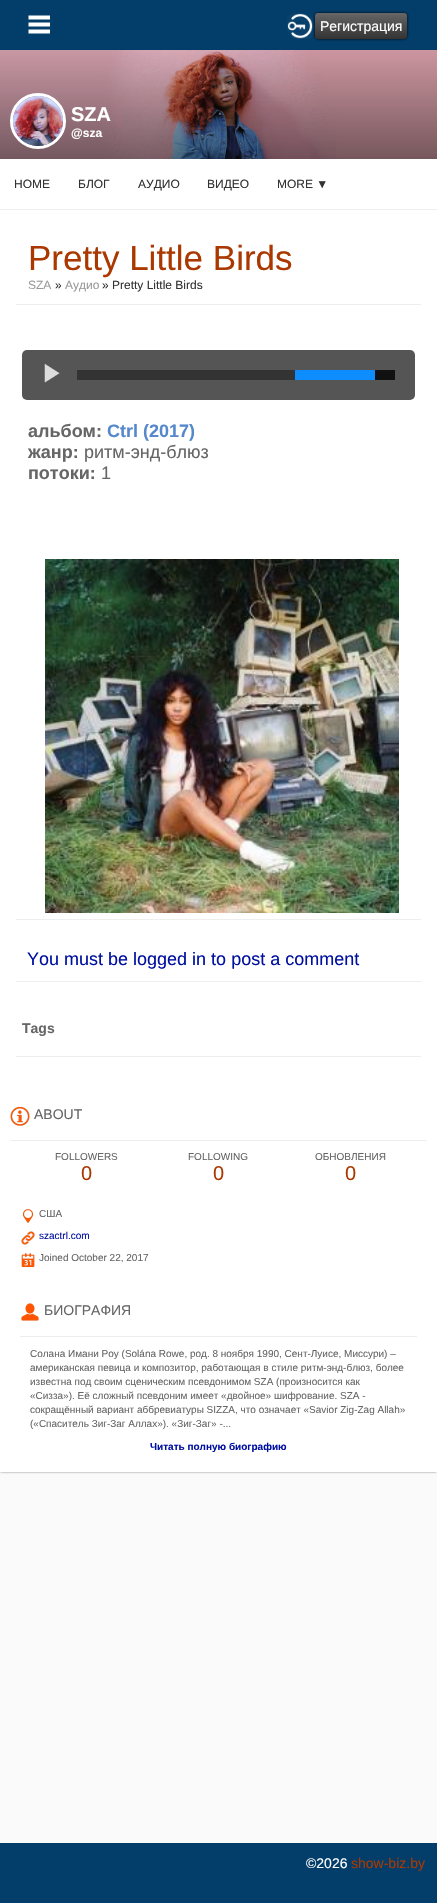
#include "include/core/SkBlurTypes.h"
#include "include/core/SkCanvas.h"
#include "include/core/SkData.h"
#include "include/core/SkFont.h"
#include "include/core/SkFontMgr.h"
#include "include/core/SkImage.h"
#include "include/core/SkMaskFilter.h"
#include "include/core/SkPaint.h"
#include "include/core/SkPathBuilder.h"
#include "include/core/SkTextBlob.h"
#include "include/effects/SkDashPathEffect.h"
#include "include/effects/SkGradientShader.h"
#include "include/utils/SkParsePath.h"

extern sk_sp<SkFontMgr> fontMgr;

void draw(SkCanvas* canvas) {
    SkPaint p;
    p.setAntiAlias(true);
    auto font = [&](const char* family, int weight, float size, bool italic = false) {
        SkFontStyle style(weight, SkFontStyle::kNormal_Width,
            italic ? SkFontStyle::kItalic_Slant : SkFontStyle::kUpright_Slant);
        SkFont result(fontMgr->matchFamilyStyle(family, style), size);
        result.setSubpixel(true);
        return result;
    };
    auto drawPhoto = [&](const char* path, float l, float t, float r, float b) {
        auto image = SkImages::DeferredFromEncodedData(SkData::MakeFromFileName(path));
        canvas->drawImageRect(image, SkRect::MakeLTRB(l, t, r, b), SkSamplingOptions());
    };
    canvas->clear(0xFFFAFAFA);
    p.setColor(0xFFAAAAAA);
    p.setMaskFilter(SkMaskFilter::MakeBlur(kNormal_SkBlurStyle, 1));
    canvas->drawRoundRect(SkRect::MakeLTRB(0, 50, 437, 1472), 4, 4, p);
    p.setMaskFilter(nullptr);
    p.setMaskFilter(SkMaskFilter::MakeBlur(kNormal_SkBlurStyle, 1));
    canvas->drawRect(SkRect::MakeLTRB(0, 50, 437, 1472), p);
    p.setMaskFilter(nullptr);
    p.setColor(0xFF033E6B);
    canvas->drawRect(SkRect::MakeLTRB(0, 0, 437, 50), p);
    drawPhoto("media/1.png", 28, 15, 50, 34);
    p.setColor(0xFF000000);
    p.setMaskFilter(SkMaskFilter::MakeBlur(kNormal_SkBlurStyle, 1.5f));
    canvas->drawRoundRect(SkRect::MakeLTRB(315, 13, 407, 39), 3, 3, p);
    p.setMaskFilter(nullptr);
    drawPhoto("media/2.png", 287, 13, 313, 39);
    {
        const SkColor colors[] = {0xFF666666, 0xFF333333};
        const float stops[] = {0, 1};
        const SkPoint ends[] = {{361, 13}, {361, 39}};
        p.setShader(SkGradientShader::MakeLinear(ends, colors, stops, 2, SkTileMode::kClamp));
        p.setAlpha(255);
    }
    canvas->drawRoundRect(SkRect::MakeLTRB(315, 13, 407, 39), 3, 3, p);
    auto font1 = font("Liberation Sans", 400, 14);
    p.setShader(nullptr);
    p.setColor(0xFFFFFFFF);
    canvas->drawString("Регистрация", 320, 31, font1, p);
    canvas->drawRect(SkRect::MakeLTRB(0, 159, 437, 1472), p);
    drawPhoto("media/3.png", 0, 50, 437, 159);
    {
        const SkColor colors[] = {0x00000000, 0x80000000};
        const float stops[] = {0, 1};
        const SkPoint ends[] = {{219, 9}, {219, 159}};
        p.setShader(SkGradientShader::MakeLinear(ends, colors, stops, 2, SkTileMode::kClamp));
        p.setAlpha(255);
    }
    canvas->drawRect(SkRect::MakeLTRB(0, 50, 437, 159), p);
    p.setStyle(SkPaint::kStroke_Style);
    p.setStrokeWidth(3);
    p.setShader(nullptr);
    p.setColor(0xFFFFFFFF);
    canvas->drawCircle(38, 121, 26.5f, p);
    drawPhoto("media/4.png", 13, 96, 63, 146);
    auto font2 = font("Liberation Sans", 700, 20);
    p.setStyle(SkPaint::kFill_Style);
    canvas->drawString("SZA", 71, 121, font2, p);
    auto font3 = font("Liberation Sans", 700, 12);
    canvas->drawString("@sza", 71, 137, font3, p);
    p.setColor(0xFFEEEEEE);
    canvas->drawRect(SkRect::MakeLTRB(0, 209, 437, 210), p);
    auto font4 = font("Liberation Sans", 400, 12);
    p.setColor(0xFF333333);
    {
        const struct { const char* s; float x, y; } items[] = {
            {"HOME", 14, 188},
            {"БЛОГ", 78, 188},
            {"АУДИО", 138, 188},
            {"ВИДЕО", 207, 188},
            {"MORE ▼", 277, 188},
        };
        for (auto [s, x, y] : items) {
            canvas->drawString(s, x, y, font4, p);
        }
    }
    p.setColor(0xFFEEEEEE);
    canvas->drawRect(SkRect::MakeLTRB(16, 304, 421, 305), p);
    auto font5 = font("Liberation Sans", 400, 35);
    p.setColor(0xFFAA3800);
    canvas->drawString("Pretty Little Birds", 28, 270, font5, p);
    p.setColor(0xFF999999);
    canvas->drawString("SZA", 28, 289, font4, p);
    p.setColor(0xFF333333);
    canvas->drawString("»", 55, 289, font4, p);
    p.setColor(0xFF999999);
    canvas->drawString("Аудио", 65, 289, font4, p);
    p.setColor(0xFF333333);
    canvas->drawString("» Pretty Little Birds", 102, 289, font4, p);
    p.setColor(0xFFEEEEEE);
    canvas->drawRect(SkRect::MakeLTRB(16, 919, 421, 920), p);
    p.setColor(0xFF555555);
    canvas->drawRoundRect(SkRect::MakeLTRB(22, 350, 415, 400), 5, 5, p);
    drawPhoto("media/5.png", 44, 364, 60, 383);
    {
        const struct { float l, t, r, b; SkColor color; } items[] = {
            {77, 370, 295, 380, 0xFF333333},
            {375, 370, 395, 380, 0xFF111111},
            {295, 370, 375, 380, 0xFF0E8DFF},
        };
        for (auto [l, t, r, b, color] : items) {
            p.setColor(color);
            canvas->drawRect(SkRect::MakeLTRB(l, t, r, b), p);
        }
    }
    auto font6 = font("Liberation Sans", 700, 18);
    p.setColor(0xFF666666);
    canvas->drawString("альбом:", 28, 437, font6, p);
    p.setColor(0xFF5588CC);
    canvas->drawString("Ctrl (2017)", 107, 437, font6, p);
    p.setColor(0xFF666666);
    canvas->drawString("жанр:", 28, 458, font6, p);
    auto font7 = font("Liberation Sans", 400, 18);
    canvas->drawString("ритм-энд-блюз", 84, 458, font7, p);
    canvas->drawString("потоки:", 28, 479, font6, p);
    canvas->drawString("1", 101, 479, font7, p);
    drawPhoto("media/6.png", 45, 559, 399, 913);
    p.setColor(0xFFEEEEEE);
    canvas->drawRect(SkRect::MakeLTRB(16, 981, 421, 982), p);
    p.setColor(0xFF0010A0);
    canvas->drawString("You must be logged in to post a comment", 27, 965, font7, p);
    p.setColor(0xFFEEEEEE);
    canvas->drawRect(SkRect::MakeLTRB(16, 1056, 421, 1057), p);
    auto font8 = font("Liberation Sans", 700, 14);
    p.setColor(0xFF666666);
    canvas->drawString("Tags", 22, 1033, font8, p);
    p.setColor(0xFFEEEEEE);
    canvas->drawRect(SkRect::MakeLTRB(10, 1140, 427, 1141), p);
    drawPhoto("media/7.png", 10, 1106, 30, 1126);
    p.setColor(0xFF666666);
    canvas->drawString("ABOUT", 34, 1119, font1, p);
    auto font9 = font("Liberation Sans", 400, 10);
    canvas->drawString("FOLLOWERS", 55, 1160, font9, p);
    auto font10 = font("Liberation Sans", 400, 20);
    p.setColor(0xFFAA3800);
    canvas->drawString("0", 81, 1180, font10, p);
    p.setColor(0xFF666666);
    canvas->drawString("FOLLOWING", 188, 1160, font9, p);
    p.setColor(0xFFAA3800);
    canvas->drawString("0", 213, 1180, font10, p);
    p.setColor(0xFF666666);
    canvas->drawString("ОБНОВЛЕНИЯ", 315, 1160, font9, p);
    p.setColor(0xFFAA3800);
    canvas->drawString("0", 345, 1180, font10, p);
    drawPhoto("media/8.png", 23, 1209, 33, 1223);
    p.setColor(0xFF666666);
    canvas->drawString("США", 39, 1217, font9, p);
    drawPhoto("media/9.png", 21, 1231, 35, 1245);
    p.setColor(0xFF0010A0);
    canvas->drawString("szactrl.com", 39, 1239, font9, p);
    drawPhoto("media/10.png", 21, 1253, 35, 1267);
    p.setColor(0xFF666666);
    canvas->drawString("Joined October 22, 2017", 39, 1261, font9, p);
    p.setColor(0xFFEEEEEE);
    canvas->drawRect(SkRect::MakeLTRB(20, 1336, 417, 1337), p);
    drawPhoto("media/11.png", 21, 1303, 39, 1321);
    p.setColor(0xFF666666);
    canvas->drawString("БИОГРАФИЯ", 44, 1315, font1, p);
    {
        const struct { const char* s; float x, y; } items[] = {
            {"Солана Имани Роу (Solána Rowe, род. 8 ноября 1990, Сент-Луисе, Миссури) –", 30, 1357},
            {"американская певица и композитор, работающая в стиле ритм-энд-блюз, более", 30, 1371},
            {"известна под своим сценическим псевдонимом SZA (произносится как", 30, 1385},
            {"«Сизза»). Её сложный псевдоним имеет «двойное» шифрование. SZA -", 30, 1399},
            {"сокращённый вариант аббревиатуры SIZZA, что означает «Savior Zig-Zag Allah»", 30, 1413},
            {"(«Спаситель Зиг-Заг Аллах»). «Зиг-Заг» -...", 30, 1427},
        };
        for (auto [s, x, y] : items) {
            canvas->drawString(s, x, y, font9, p);
        }
    }
    auto font11 = font("Liberation Sans", 700, 10);
    p.setColor(0xFF0010A0);
    canvas->drawString("Читать полную биографию", 150, 1450, font11, p);
    p.setColor(0xFF033E6B);
    canvas->drawRect(SkRect::MakeLTRB(0, 1843, 437, 1903), p);
    p.setColor(0xFFFFFFFF);
    canvas->drawString("©2026", 306, 1868, font1, p);
    p.setColor(0xFFAA3800);
    canvas->drawString("show-biz.by", 351, 1868, font1, p);
}
